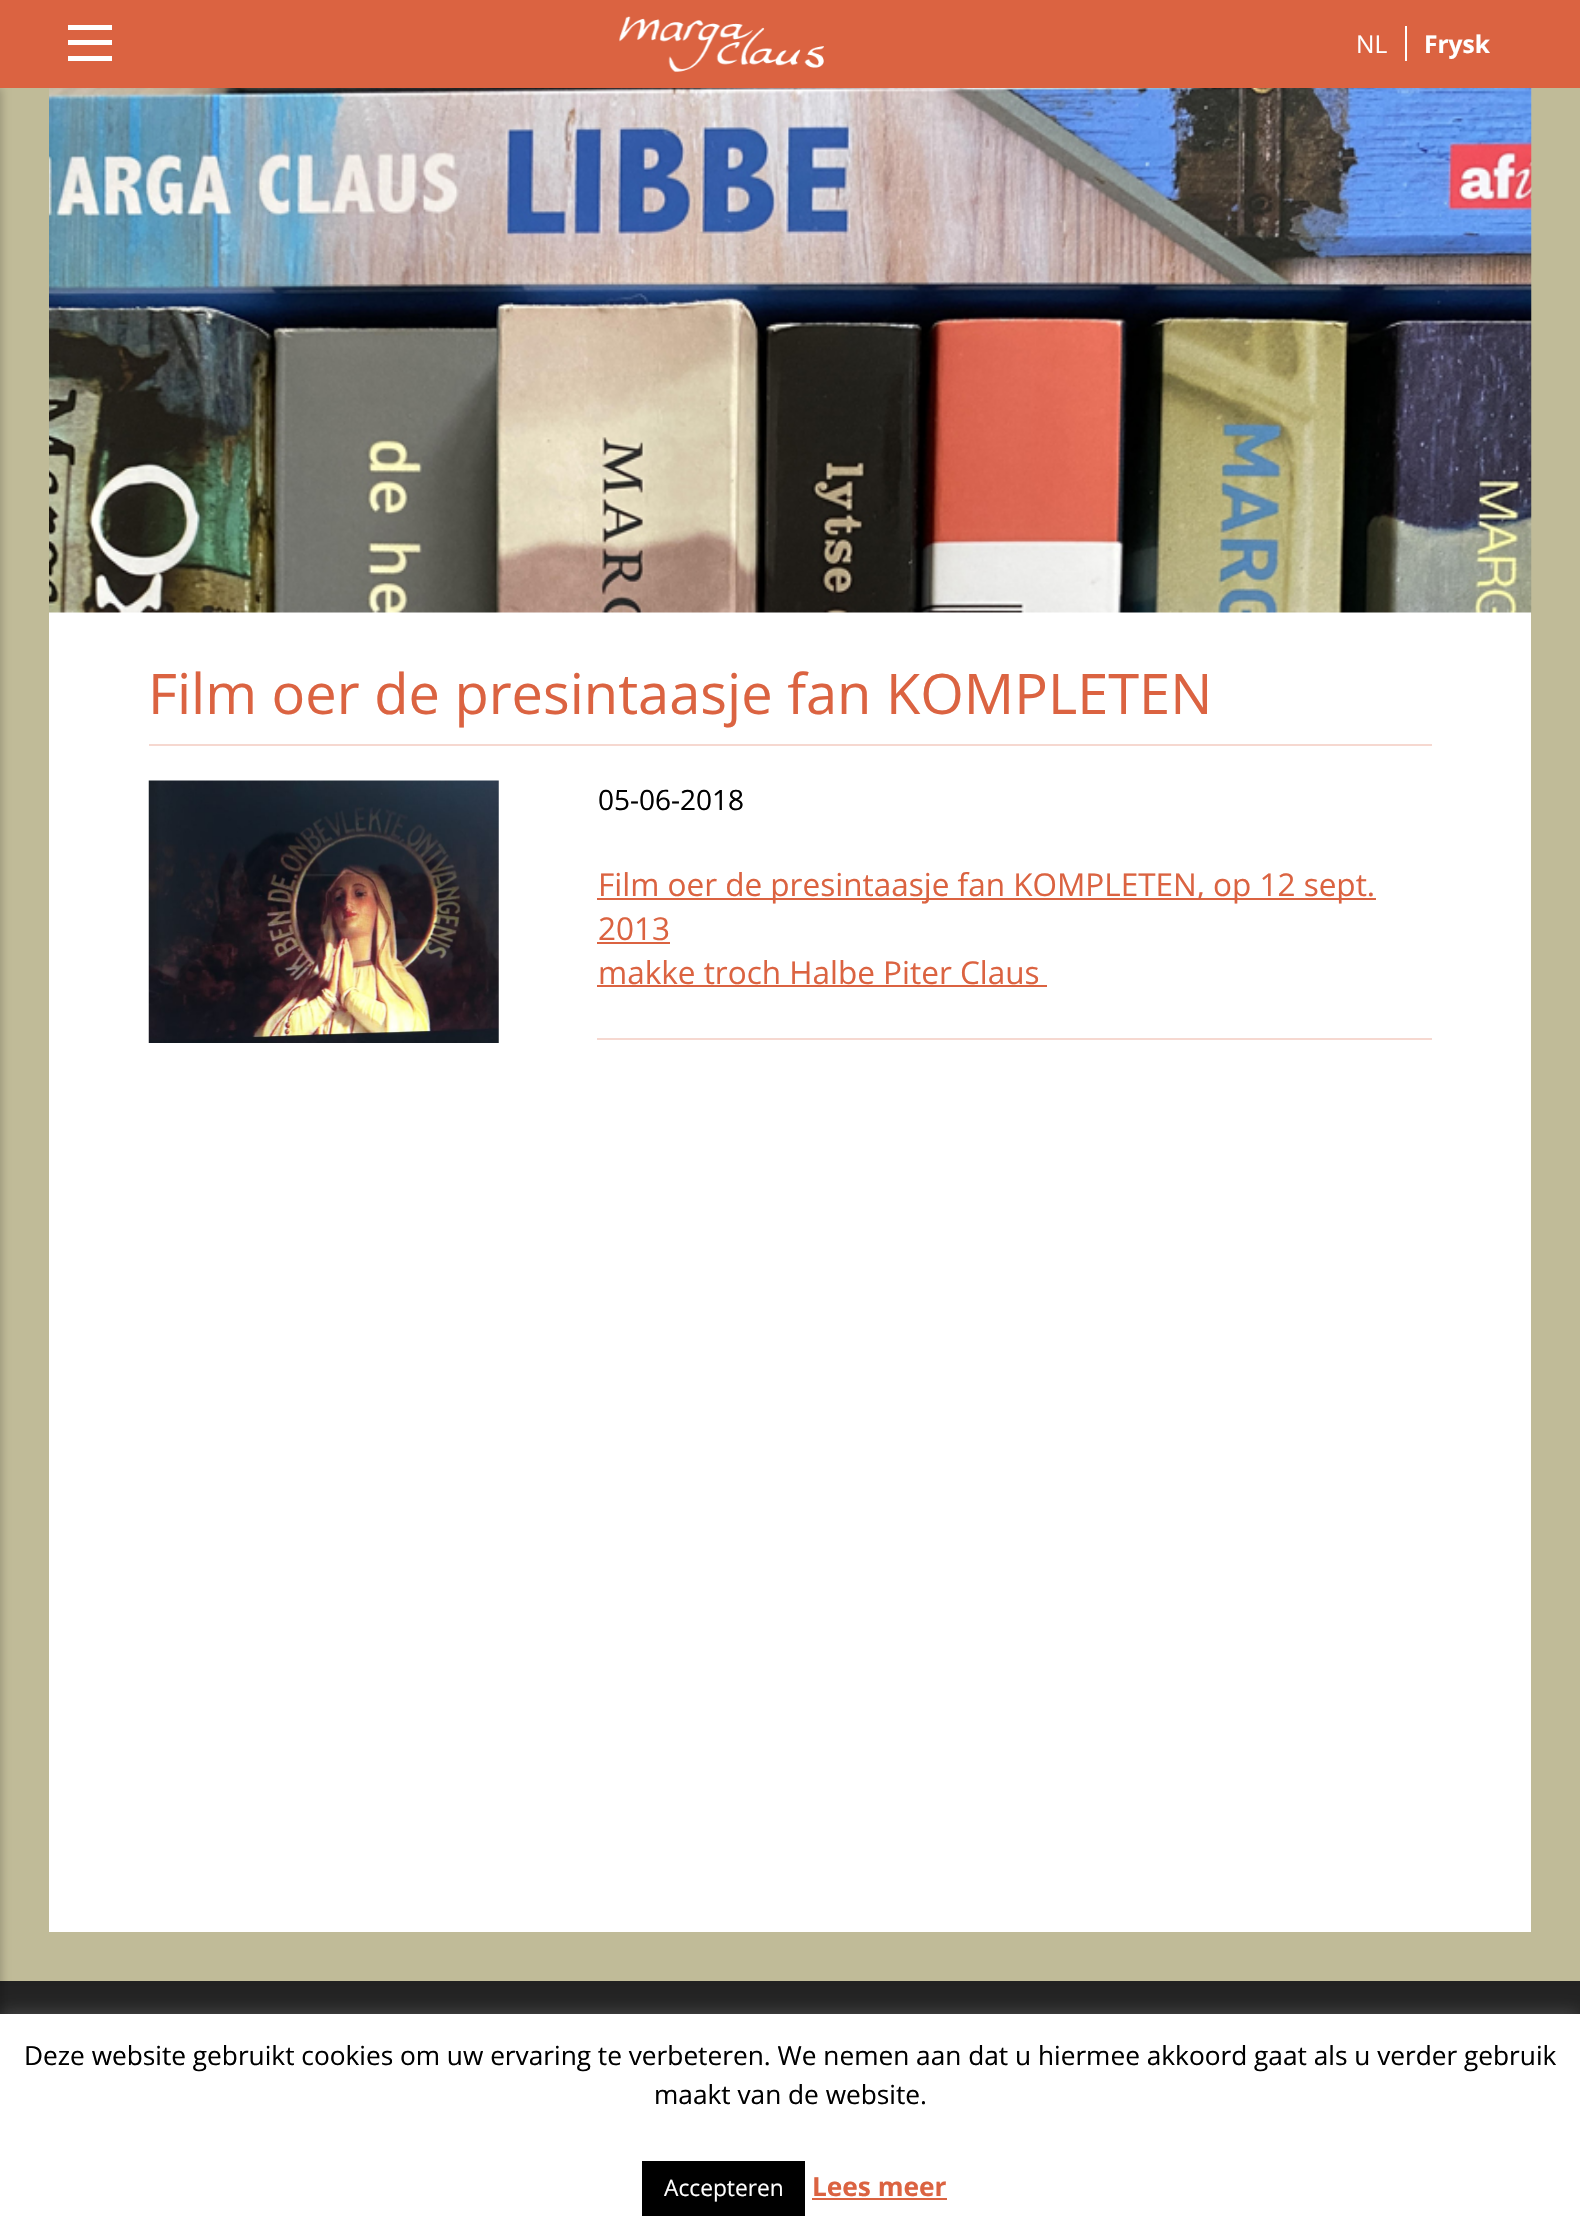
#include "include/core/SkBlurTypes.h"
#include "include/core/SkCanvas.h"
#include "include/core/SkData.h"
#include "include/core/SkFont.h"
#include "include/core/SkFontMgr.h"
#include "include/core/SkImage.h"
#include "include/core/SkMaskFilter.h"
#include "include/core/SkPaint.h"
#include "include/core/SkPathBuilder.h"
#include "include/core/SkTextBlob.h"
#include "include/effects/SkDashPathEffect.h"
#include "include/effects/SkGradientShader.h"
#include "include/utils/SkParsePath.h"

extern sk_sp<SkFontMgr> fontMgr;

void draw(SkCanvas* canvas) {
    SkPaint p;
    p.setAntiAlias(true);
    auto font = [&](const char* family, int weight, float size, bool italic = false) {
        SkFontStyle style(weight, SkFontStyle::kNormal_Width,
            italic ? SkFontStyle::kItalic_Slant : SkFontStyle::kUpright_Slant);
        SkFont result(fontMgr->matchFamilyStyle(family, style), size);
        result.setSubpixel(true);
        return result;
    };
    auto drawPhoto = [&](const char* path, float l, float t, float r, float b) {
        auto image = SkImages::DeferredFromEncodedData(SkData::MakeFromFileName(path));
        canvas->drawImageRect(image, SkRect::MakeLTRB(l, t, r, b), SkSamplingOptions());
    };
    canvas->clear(0xFFC0BB98);
    p.setColor(0xFF222222);
    canvas->drawRect(SkRect::MakeLTRB(0, 1981, 1580, 2014), p);
    p.setColor(0x33000000);
    p.setMaskFilter(SkMaskFilter::MakeBlur(kNormal_SkBlurStyle, 4.5f));
    canvas->drawRect(SkRect::MakeLTRB(-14, 88, 2, 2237), p);
    p.setMaskFilter(nullptr);
    {
        const struct { float l, t, r, b; SkColor color; } items[] = {
            {0, 0, 1580, 88, 0xFFDB6341},
            {68, 25, 112, 30, 0xFFFFFFFF},
            {68, 40, 112, 45, 0xFFFFFFFF},
            {68, 56, 112, 61, 0xFFFFFFFF},
        };
        for (auto [l, t, r, b, color] : items) {
            p.setColor(color);
            canvas->drawRect(SkRect::MakeLTRB(l, t, r, b), p);
        }
    }
    drawPhoto("media/1.png", 619, 16, 824, 72);
    canvas->drawRect(SkRect::MakeLTRB(1405, 26, 1407, 61), p);
    auto font1 = font("Open Sans", 400, 24.5f);
    canvas->drawString("NL", 1356, 53, font1, p);
    auto font2 = font("Open Sans", 700, 24.5f);
    canvas->drawString("Frysk", 1424, 53, font2, p);
    canvas->drawRect(SkRect::MakeLTRB(49, 612, 1531, 1932), p);
    drawPhoto("media/2.png", 49, 88, 1532, 613);
    p.setColor(0xFFF6D8D0);
    canvas->drawRect(SkRect::MakeLTRB(149, 744, 1432, 746), p);
    auto font3 = font("Open Sans", 400, 56);
    p.setColor(0xFFDB6341);
    canvas->drawString("Film oer de presintaasje fan KOMPLETEN", 148, 714, font3, p);
    drawPhoto("media/3.png", 148, 780, 499, 1043);
    auto font4 = font("Open Sans", 400, 28);
    p.setColor(0xFF000000);
    canvas->drawString("05-06-2018", 598, 810, font4, p);
    p.setColor(0xFFF6D8D0);
    canvas->drawRect(SkRect::MakeLTRB(597, 1038, 1432, 1040), p);
    p.setColor(0xFFDB6341);
    canvas->drawRect(SkRect::MakeLTRB(597, 898, 1376, 900), p);
    auto font5 = font("Open Sans", 400, 31.5f);
    canvas->drawString("Film oer de presintaasje fan KOMPLETEN, op 12 sept.", 598, 896, font5, p);
    canvas->drawString("2013", 598, 940, font5, p);
    canvas->drawRect(SkRect::MakeLTRB(597, 942, 670, 944), p);
    canvas->drawString("makke troch Halbe Piter Claus", 598, 984, font5, p);
    canvas->drawRect(SkRect::MakeLTRB(597, 985, 1047, 987), p);
    p.setColor(0x4DACABAB);
    p.setMaskFilter(SkMaskFilter::MakeBlur(kNormal_SkBlurStyle, 9));
    canvas->drawRect(SkRect::MakeLTRB(0, 2013, 1580, 2235), p);
    p.setMaskFilter(nullptr);
    p.setColor(0xFFFFFFFF);
    canvas->drawRect(SkRect::MakeLTRB(0, 2014, 1580, 2236), p);
    auto font6 = font("Open Sans", 400, 26.25f);
    p.setColor(0xFF000000);
    canvas->drawString("Deze website gebruikt cookies om uw ervaring te verbeteren. We nemen aan dat u hiermee akkoord gaat als u verder gebruik", 24, 2065, font6, p);
    canvas->drawString("maakt van de website.", 654, 2104, font6, p);
    canvas->drawRect(SkRect::MakeLTRB(642, 2161, 805, 2216), p);
    auto font7 = font("Open Sans", 400, 22.75f);
    p.setColor(0xFFFFFFFF);
    canvas->drawString("Accepteren", 664, 2196, font7, p);
    auto font8 = font("Open Sans", 700, 26.25f);
    p.setColor(0xFFDB6341);
    canvas->drawString("Lees meer", 812, 2196, font8, p);
    canvas->drawRect(SkRect::MakeLTRB(812, 2198, 947, 2200), p);
}
